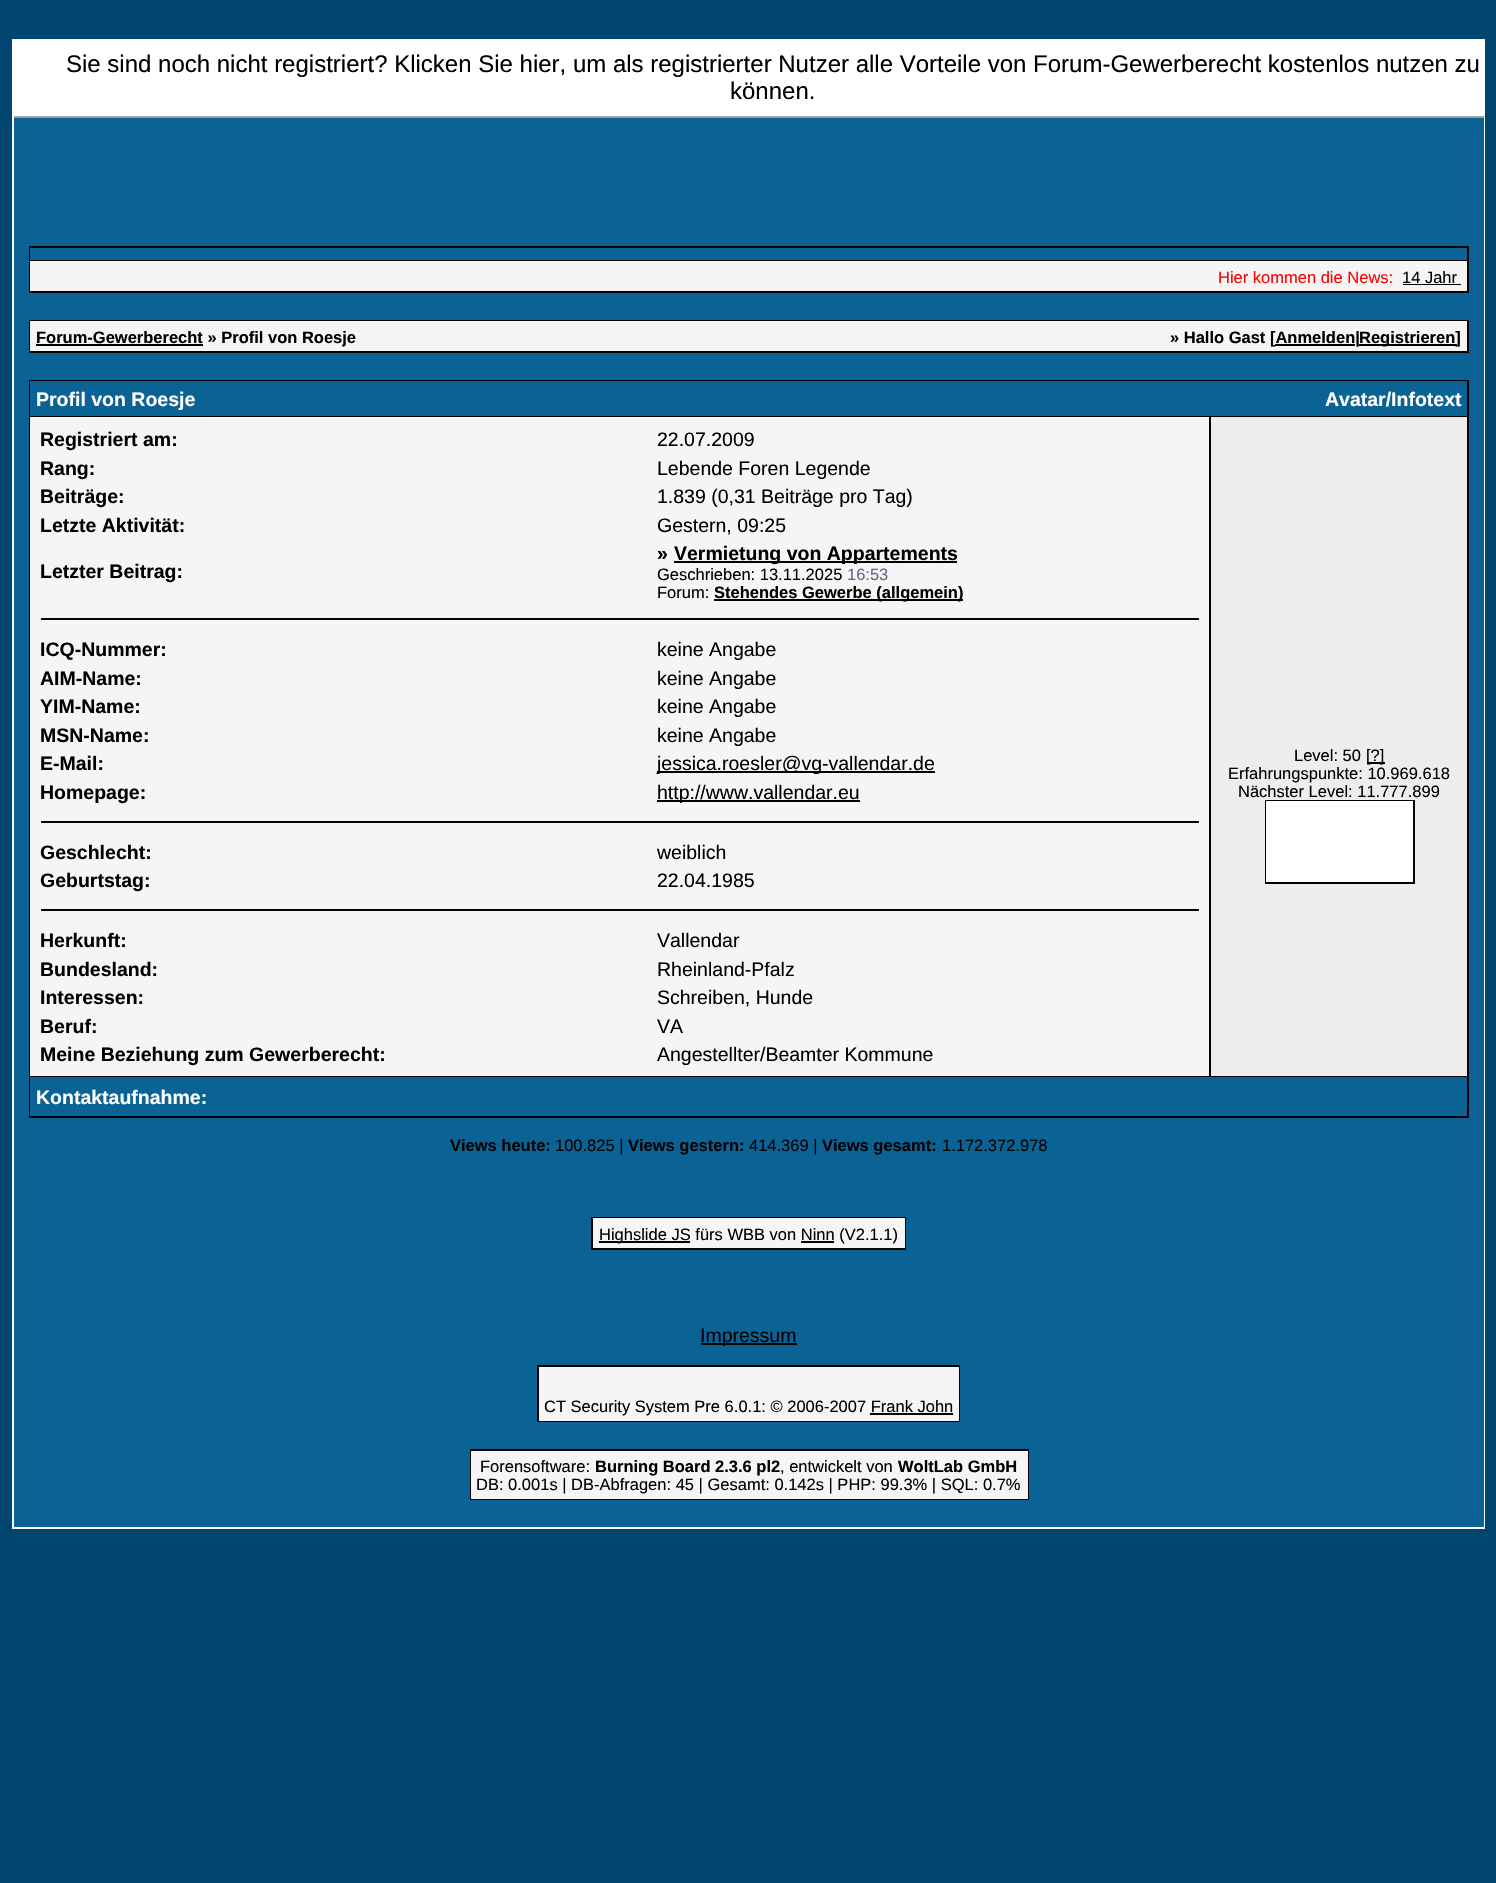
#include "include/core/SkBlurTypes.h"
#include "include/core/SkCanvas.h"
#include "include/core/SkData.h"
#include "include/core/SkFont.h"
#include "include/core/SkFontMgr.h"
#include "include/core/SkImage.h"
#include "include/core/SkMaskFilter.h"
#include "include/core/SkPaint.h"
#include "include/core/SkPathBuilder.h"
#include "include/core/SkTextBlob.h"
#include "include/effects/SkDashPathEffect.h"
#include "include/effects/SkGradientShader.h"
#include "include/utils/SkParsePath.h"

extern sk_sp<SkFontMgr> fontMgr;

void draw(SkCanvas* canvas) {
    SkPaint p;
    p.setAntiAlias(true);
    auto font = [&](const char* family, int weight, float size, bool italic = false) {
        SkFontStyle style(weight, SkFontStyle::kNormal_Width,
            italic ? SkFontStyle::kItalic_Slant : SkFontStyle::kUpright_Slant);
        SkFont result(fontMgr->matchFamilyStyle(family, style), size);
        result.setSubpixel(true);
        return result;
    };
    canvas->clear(0xFF004671);
    {
        const struct { float l, t, r, b; SkColor color; } items[] = {
            {12, 39, 1485, 1529, 0xFFFFFFFF},
            {14, 118, 1484, 1527, 0xFF0B6295},
            {14, 116, 1484, 118, 0xFF9F9F9F},
        };
        for (auto [l, t, r, b, color] : items) {
            p.setColor(color);
            canvas->drawRect(SkRect::MakeLTRB(l, t, r, b), p);
        }
    }
    auto font1 = font("Liberation Sans", 400, 24);
    p.setColor(0xFF000000);
    canvas->drawString("Sie sind noch nicht registriert? Klicken Sie hier, um als registrierter Nutzer alle Vorteile von Forum-Gewerberecht kostenlos nutzen zu", 66, 72, font1, p);
    canvas->drawString("können.", 730, 99, font1, p);
    {
        const struct { float l, t, r, b; SkColor color; } items[] = {
            {29, 246, 1469, 293, 0xFF000000},
            {30, 248, 1467, 260, 0xFF0B6295},
            {30, 261, 1467, 291, 0xFFF5F5F5},
        };
        for (auto [l, t, r, b, color] : items) {
            p.setColor(color);
            canvas->drawRect(SkRect::MakeLTRB(l, t, r, b), p);
        }
    }
    auto font2 = font("Liberation Sans", 400, 16.5f);
    p.setColor(0xFFFF0000);
    canvas->drawString("Hier kommen die News:", 1218, 283, font2, p);
    p.setColor(0xFF000000);
    canvas->drawString("14 Jahr", 1402, 283, font2, p);
    {
        const struct { float l, t, r, b; SkColor color; } items[] = {
            {1403, 284, 1461, 285, 0xFF000000},
            {29, 320, 1469, 353, 0xFF000000},
            {30, 321, 1467, 351, 0xFFF5F5F5},
            {36, 344, 203, 346, 0xFF000000},
        };
        for (auto [l, t, r, b, color] : items) {
            p.setColor(color);
            canvas->drawRect(SkRect::MakeLTRB(l, t, r, b), p);
        }
    }
    auto font3 = font("Liberation Sans", 700, 16.5f);
    canvas->drawString("Forum-Gewerberecht » Profil von Roesje", 36, 343, font3, p);
    canvas->drawString("» Hallo Gast [Anmelden|", 1170, 343, font3, p);
    canvas->drawRect(SkRect::MakeLTRB(1275, 344, 1355, 346), p);
    canvas->drawRect(SkRect::MakeLTRB(1359, 344, 1457, 346), p);
    canvas->drawString("Registrieren]", 1359, 343, font3, p);
    canvas->drawRect(SkRect::MakeLTRB(29, 380, 1469, 1118), p);
    p.setColor(0xFF0B6295);
    canvas->drawRect(SkRect::MakeLTRB(30, 381, 1467, 416), p);
    auto font4 = font("Liberation Sans", 700, 19.5f);
    p.setColor(0xFFFFFFFF);
    canvas->drawString("Profil von Roesje", 36, 406, font4, p);
    canvas->drawString("Avatar/Infotext", 1325, 406, font4, p);
    p.setColor(0xFFF5F5F5);
    canvas->drawRect(SkRect::MakeLTRB(30, 417, 1209, 1076), p);
    p.setColor(0xFF000000);
    canvas->drawString("Registriert am:", 40, 446, font4, p);
    auto font5 = font("Liberation Sans", 400, 19.5f);
    canvas->drawString("22.07.2009", 657, 446, font5, p);
    canvas->drawString("Rang:", 40, 475, font4, p);
    canvas->drawString("Lebende Foren Legende", 657, 475, font5, p);
    canvas->drawString("Beiträge:", 40, 503, font4, p);
    canvas->drawString("1.839 (0,31 Beiträge pro Tag)", 657, 503, font5, p);
    canvas->drawString("Letzte Aktivität:", 40, 532, font4, p);
    canvas->drawString("Gestern, 09:25", 657, 532, font5, p);
    canvas->drawString("Letzter Beitrag:", 40, 578, font4, p);
    canvas->drawString("»", 657, 560, font4, p);
    canvas->drawRect(SkRect::MakeLTRB(674, 561, 957, 563), p);
    canvas->drawString("Vermietung von Appartements", 674, 560, font4, p);
    canvas->drawString("Geschrieben: 13.11.2025", 657, 580, font2, p);
    p.setColor(0xFF666686);
    canvas->drawString("16:53", 847, 580, font2, p);
    p.setColor(0xFF000000);
    canvas->drawString("Forum:", 657, 598, font2, p);
    canvas->drawRect(SkRect::MakeLTRB(714, 599, 963, 601), p);
    canvas->drawString("Stehendes Gewerbe (allgemein)", 714, 598, font3, p);
    canvas->drawRect(SkRect::MakeLTRB(41, 618, 1199, 620), p);
    canvas->drawString("ICQ-Nummer:", 40, 656, font4, p);
    canvas->drawString("keine Angabe", 657, 656, font5, p);
    canvas->drawString("AIM-Name:", 40, 685, font4, p);
    canvas->drawString("keine Angabe", 657, 685, font5, p);
    canvas->drawString("YIM-Name:", 40, 713, font4, p);
    canvas->drawString("keine Angabe", 657, 713, font5, p);
    canvas->drawString("MSN-Name:", 40, 742, font4, p);
    canvas->drawString("keine Angabe", 657, 742, font5, p);
    canvas->drawString("E-Mail:", 40, 770, font4, p);
    canvas->drawRect(SkRect::MakeLTRB(657, 771, 935, 773), p);
    canvas->drawString("jessica.roesler@vg-vallendar.de", 657, 770, font5, p);
    canvas->drawString("Homepage:", 40, 799, font4, p);
    canvas->drawRect(SkRect::MakeLTRB(657, 800, 860, 802), p);
    canvas->drawString("http://www.vallendar.eu", 657, 799, font5, p);
    canvas->drawRect(SkRect::MakeLTRB(41, 821, 1199, 823), p);
    canvas->drawString("Geschlecht:", 40, 859, font4, p);
    canvas->drawString("weiblich", 657, 859, font5, p);
    canvas->drawString("Geburtstag:", 40, 887, font4, p);
    canvas->drawString("22.04.1985", 657, 887, font5, p);
    canvas->drawRect(SkRect::MakeLTRB(41, 909, 1199, 911), p);
    canvas->drawString("Herkunft:", 40, 947, font4, p);
    canvas->drawString("Vallendar", 657, 947, font5, p);
    canvas->drawString("Bundesland:", 40, 976, font4, p);
    canvas->drawString("Rheinland-Pfalz", 657, 976, font5, p);
    canvas->drawString("Interessen:", 40, 1004, font4, p);
    canvas->drawString("Schreiben, Hunde", 657, 1004, font5, p);
    canvas->drawString("Beruf:", 40, 1033, font4, p);
    canvas->drawString("VA", 657, 1033, font5, p);
    canvas->drawString("Meine Beziehung zum Gewerberecht:", 40, 1061, font4, p);
    canvas->drawString("Angestellter/Beamter Kommune", 657, 1061, font5, p);
    p.setColor(0xFFEDEDED);
    canvas->drawRect(SkRect::MakeLTRB(1211, 417, 1467, 1076), p);
    p.setColor(0xFF000000);
    canvas->drawString("Level: 50", 1294, 761, font2, p);
    canvas->drawRect(SkRect::MakeLTRB(1367, 762, 1385, 764), p);
    {
        const struct { const char* s; float x, y; } items[] = {
            {"[?]", 1366, 761},
            {"Erfahrungspunkte: 10.969.618", 1228, 779},
            {"Nächster Level: 11.777.899", 1238, 797},
        };
        for (auto [s, x, y] : items) {
            canvas->drawString(s, x, y, font2, p);
        }
    }
    {
        const struct { float l, t, r, b; SkColor color; } items[] = {
            {1265, 800, 1415, 884, 0xFF000000},
            {1266, 801, 1413, 882, 0xFFFFFFFF},
            {30, 1077, 1467, 1116, 0xFF0B6295},
        };
        for (auto [l, t, r, b, color] : items) {
            p.setColor(color);
            canvas->drawRect(SkRect::MakeLTRB(l, t, r, b), p);
        }
    }
    p.setColor(0xFFFFFFFF);
    canvas->drawString("Kontaktaufnahme:", 36, 1104, font4, p);
    p.setColor(0xFF000000);
    canvas->drawString("Views heute:", 450, 1151, font3, p);
    canvas->drawString("100.825 |", 555, 1151, font2, p);
    canvas->drawString("Views gestern:", 628, 1151, font3, p);
    canvas->drawString("414.369 |", 749, 1151, font2, p);
    canvas->drawString("Views gesamt:", 822, 1151, font3, p);
    canvas->drawString("1.172.372.978", 942, 1151, font2, p);
    {
        const struct { float l, t, r, b; SkColor color; } items[] = {
            {591, 1217, 906, 1250, 0xFF000000},
            {593, 1218, 905, 1248, 0xFFF5F5F5},
            {599, 1241, 690, 1243, 0xFF000000},
        };
        for (auto [l, t, r, b, color] : items) {
            p.setColor(color);
            canvas->drawRect(SkRect::MakeLTRB(l, t, r, b), p);
        }
    }
    canvas->drawString("Highslide JS fürs WBB von Ninn (V2.1.1)", 599, 1240, font2, p);
    canvas->drawRect(SkRect::MakeLTRB(801, 1241, 834, 1243), p);
    canvas->drawRect(SkRect::MakeLTRB(701, 1343, 797, 1345), p);
    canvas->drawString("Impressum", 700, 1342, font5, p);
    canvas->drawRect(SkRect::MakeLTRB(537, 1365, 960, 1422), p);
    p.setColor(0xFFF5F5F5);
    canvas->drawRect(SkRect::MakeLTRB(539, 1367, 959, 1421), p);
    p.setColor(0xFF000000);
    canvas->drawString("CT Security System Pre 6.0.1: © 2006-2007 Frank John", 544, 1412, font2, p);
    {
        const struct { float l, t, r, b; SkColor color; } items[] = {
            {870, 1413, 953, 1415, 0xFF000000},
            {470, 1449, 1029, 1500, 0xFF000000},
            {471, 1451, 1028, 1499, 0xFFF5F5F5},
        };
        for (auto [l, t, r, b, color] : items) {
            p.setColor(color);
            canvas->drawRect(SkRect::MakeLTRB(l, t, r, b), p);
        }
    }
    p.setColor(0xFF000000);
    canvas->drawString("Forensoftware:", 480, 1472, font2, p);
    canvas->drawString("Burning Board 2.3.6 pl2", 595, 1472, font3, p);
    canvas->drawString(", entwickelt von", 780, 1472, font2, p);
    canvas->drawString("WoltLab GmbH", 898, 1472, font3, p);
    canvas->drawString("DB: 0.001s | DB-Abfragen: 45 | Gesamt: 0.142s | PHP: 99.3% | SQL: 0.7%", 476, 1490, font2, p);
}
